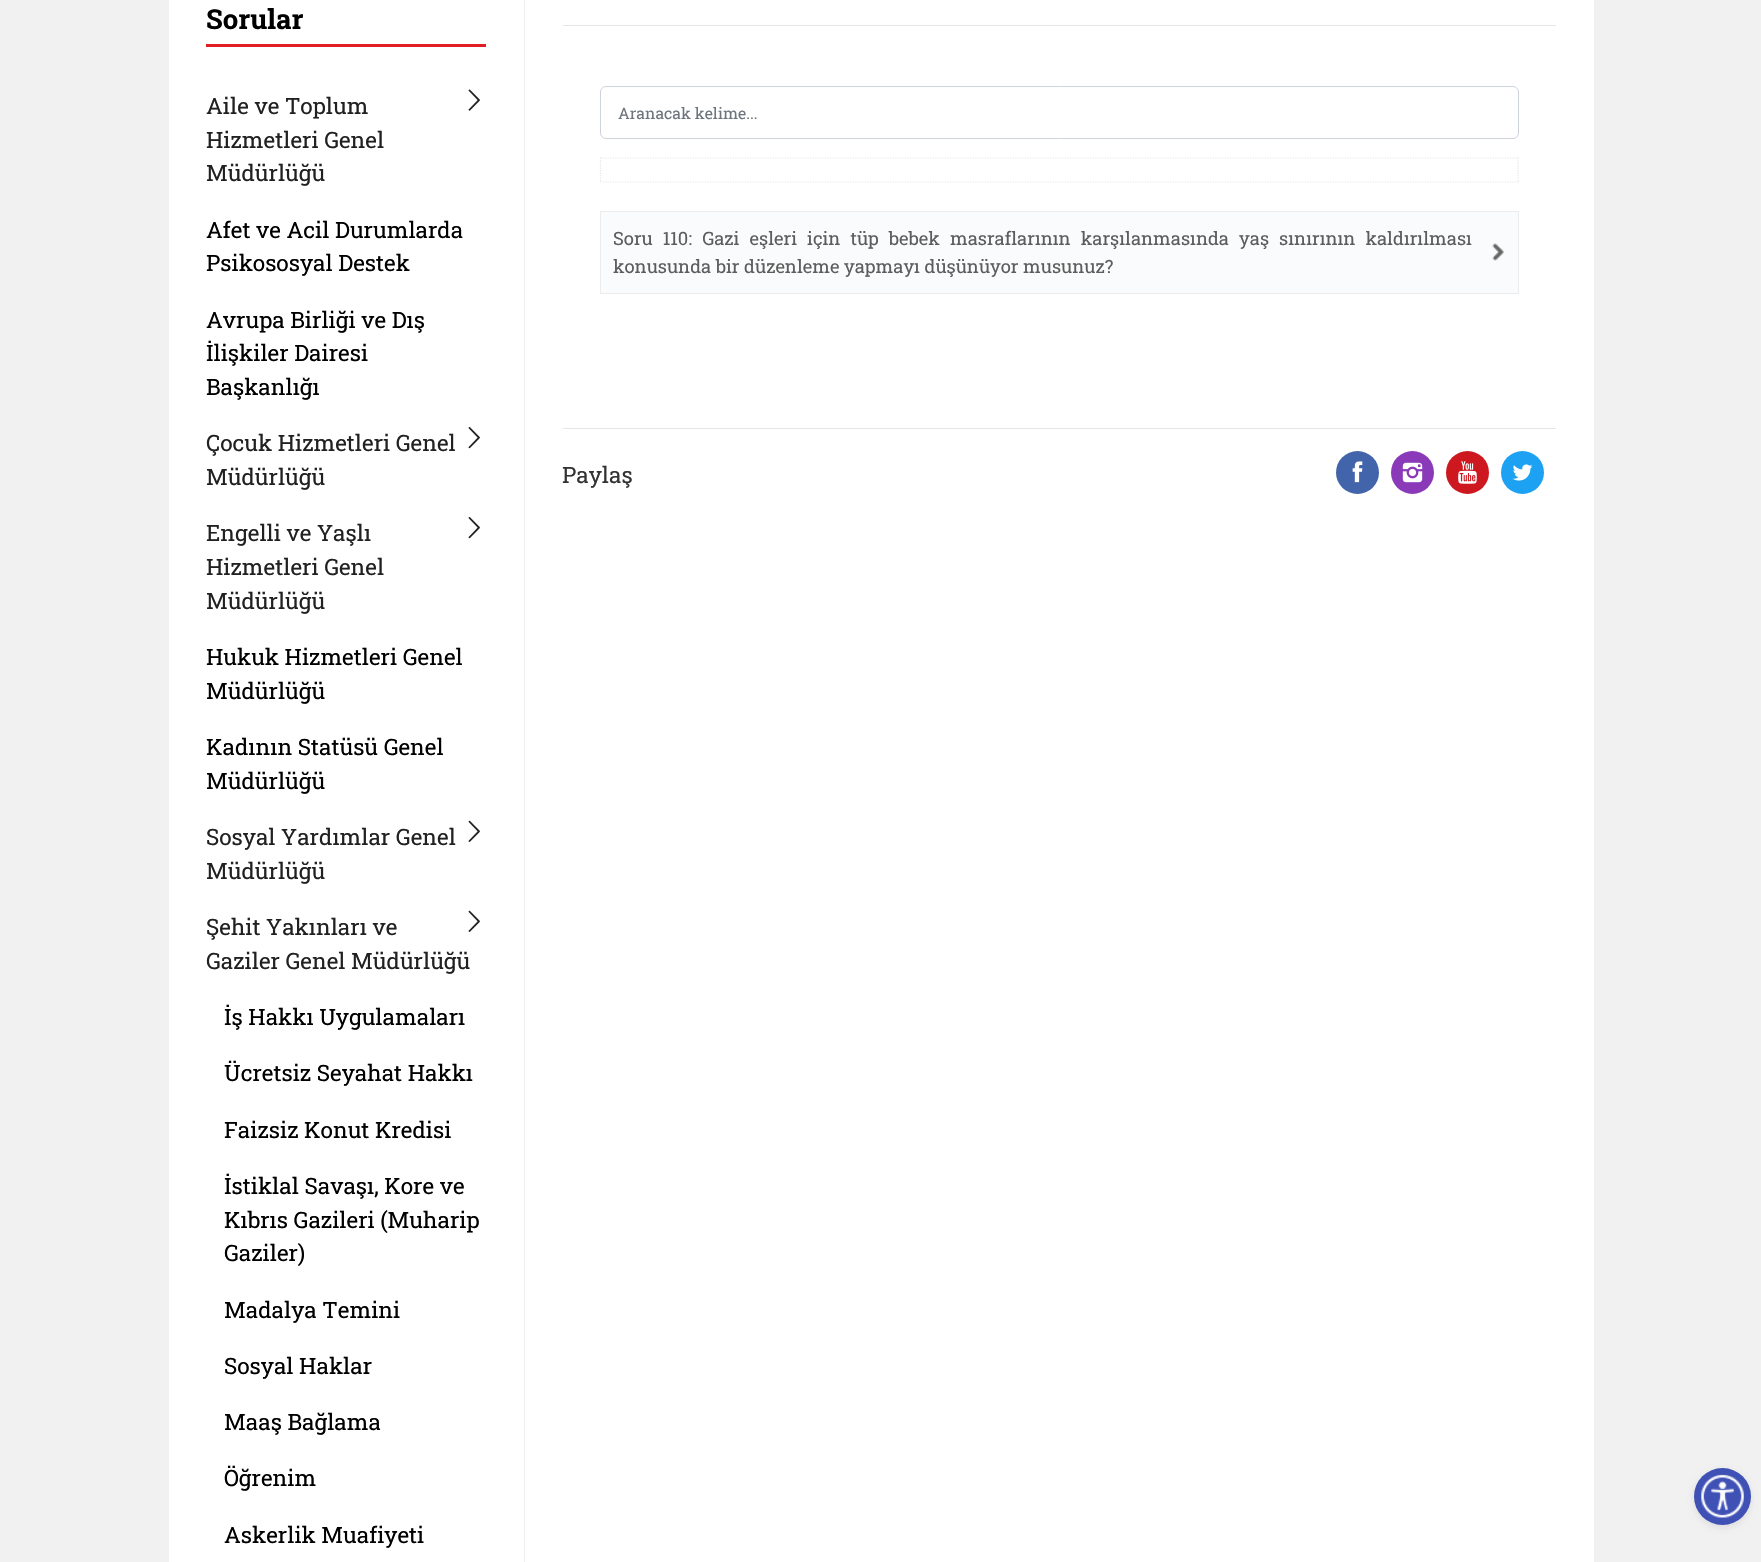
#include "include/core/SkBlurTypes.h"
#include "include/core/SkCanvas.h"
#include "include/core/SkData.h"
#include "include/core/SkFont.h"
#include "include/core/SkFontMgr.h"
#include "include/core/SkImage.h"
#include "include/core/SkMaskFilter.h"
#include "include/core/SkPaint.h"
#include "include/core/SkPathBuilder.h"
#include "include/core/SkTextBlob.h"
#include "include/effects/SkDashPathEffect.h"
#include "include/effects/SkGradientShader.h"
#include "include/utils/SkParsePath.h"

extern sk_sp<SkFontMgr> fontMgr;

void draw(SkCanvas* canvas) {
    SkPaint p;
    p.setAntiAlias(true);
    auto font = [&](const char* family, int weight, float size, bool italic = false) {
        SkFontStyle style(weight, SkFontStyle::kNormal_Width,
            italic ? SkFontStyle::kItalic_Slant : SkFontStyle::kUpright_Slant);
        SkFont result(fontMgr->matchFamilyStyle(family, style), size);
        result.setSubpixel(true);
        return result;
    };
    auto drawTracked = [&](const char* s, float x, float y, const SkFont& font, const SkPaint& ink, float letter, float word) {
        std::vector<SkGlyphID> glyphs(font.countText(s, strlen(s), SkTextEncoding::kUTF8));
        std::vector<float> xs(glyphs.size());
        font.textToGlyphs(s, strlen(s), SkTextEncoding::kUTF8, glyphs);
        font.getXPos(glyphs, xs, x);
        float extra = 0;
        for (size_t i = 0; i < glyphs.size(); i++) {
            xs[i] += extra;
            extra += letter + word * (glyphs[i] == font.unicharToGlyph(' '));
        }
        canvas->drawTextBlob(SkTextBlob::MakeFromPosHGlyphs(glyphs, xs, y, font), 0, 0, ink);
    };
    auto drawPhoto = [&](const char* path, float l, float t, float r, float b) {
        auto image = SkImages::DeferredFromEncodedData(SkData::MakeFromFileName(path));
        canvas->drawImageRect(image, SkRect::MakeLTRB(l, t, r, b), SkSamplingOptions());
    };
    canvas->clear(0xFFF1F1F1);
    {
        const struct { float l, t, r, b; SkColor color; } items[] = {
            {169, 0, 1594, 1562, 0xFFFFFFFF},
            {524, 0, 525, 1562, 0xFFEFEFEF},
            {206, 44, 486, 47, 0xFFE21E25},
        };
        for (auto [l, t, r, b, color] : items) {
            p.setColor(color);
            canvas->drawRect(SkRect::MakeLTRB(l, t, r, b), p);
        }
    }
    auto font1 = font("Roboto Slab", 700, 27.5f);
    p.setColor(0xFF000000);
    canvas->drawString("Sorular", 206, 29, font1, p);
    auto font2 = font("Roboto Slab", 400, 22.5f);
    p.setColor(0xFF212121);
    canvas->drawString("Aile ve Toplum", 206, 114, font2, p);
    drawPhoto("media/1.png", 468, 89, 480, 111);
    canvas->drawString("Hizmetleri Genel", 206, 148, font2, p);
    canvas->drawString("Müdürlüğü", 206, 181, font2, p);
    p.setColor(0xFF000000);
    {
        const struct { const char* s; float x, y; } items[] = {
            {"Afet ve Acil Durumlarda", 206, 238},
            {"Psikososyal Destek", 206, 271},
            {"Avrupa Birliği ve Dış", 206, 328},
            {"İlişkiler Dairesi", 206, 361},
            {"Başkanlığı", 206, 395},
        };
        for (auto [s, x, y] : items) {
            canvas->drawString(s, x, y, font2, p);
        }
    }
    p.setColor(0xFF212121);
    canvas->drawString("Çocuk Hizmetleri Genel", 206, 451, font2, p);
    drawPhoto("media/2.png", 468, 427, 480, 449);
    canvas->drawString("Müdürlüğü", 206, 485, font2, p);
    canvas->drawString("Engelli ve Yaşlı", 206, 541, font2, p);
    drawPhoto("media/2.png", 468, 517, 480, 539);
    canvas->drawString("Hizmetleri Genel", 206, 575, font2, p);
    canvas->drawString("Müdürlüğü", 206, 609, font2, p);
    p.setColor(0xFF000000);
    {
        const struct { const char* s; float x, y; } items[] = {
            {"Hukuk Hizmetleri Genel", 206, 665},
            {"Müdürlüğü", 206, 699},
            {"Kadının Statüsü Genel", 206, 755},
            {"Müdürlüğü", 206, 789},
        };
        for (auto [s, x, y] : items) {
            canvas->drawString(s, x, y, font2, p);
        }
    }
    p.setColor(0xFF212121);
    canvas->drawString("Sosyal Yardımlar Genel", 206, 845, font2, p);
    drawPhoto("media/3.png", 468, 820, 480, 842);
    canvas->drawString("Müdürlüğü", 206, 879, font2, p);
    canvas->drawString("Şehit Yakınları ve", 206, 935, font2, p);
    drawPhoto("media/3.png", 468, 910, 480, 932);
    canvas->drawString("Gaziler Genel Müdürlüğü", 206, 969, font2, p);
    p.setColor(0xFF000000);
    {
        const struct { const char* s; float x, y; } items[] = {
            {"İş Hakkı Uygulamaları", 224, 1025},
            {"Ücretsiz Seyahat Hakkı", 224, 1081},
            {"Faizsiz Konut Kredisi", 224, 1138},
            {"İstiklal Savaşı, Kore ve", 224, 1194},
            {"Kıbrıs Gazileri (Muharip", 224, 1228},
            {"Gaziler)", 224, 1261},
            {"Madalya Temini", 224, 1318},
            {"Sosyal Haklar", 224, 1374},
            {"Maaş Bağlama", 224, 1430},
            {"Öğrenim", 224, 1486},
            {"Askerlik Muafiyeti", 224, 1543},
        };
        for (auto [s, x, y] : items) {
            canvas->drawString(s, x, y, font2, p);
        }
    }
    p.setColor(0xFFE6E6E6);
    canvas->drawRect(SkRect::MakeLTRB(563, 25, 1556, 26), p);
    p.setStyle(SkPaint::kStroke_Style);
    p.setStrokeWidth(1);
    p.setColor(0xFFCED4DA);
    canvas->drawRoundRect(SkRect::MakeLTRB(600.5f, 86.5f, 1518.5f, 138.5f), 5.5f, 5.5f, p);
    auto font3 = font("Roboto Slab", 400, 15.75f);
    p.setStyle(SkPaint::kFill_Style);
    p.setColor(0xFF6C757D);
    canvas->drawString("Aranacak kelime...", 618, 119, font3, p);
    p.setStyle(SkPaint::kStroke_Style);
    p.setStrokeWidth(1.2f);
    p.setColor(0xFFE7E7E7);
    p.setPathEffect(SkDashPathEffect::Make({{1.25f, 1.25f}}, 0));
    canvas->drawPath(SkPathBuilder().moveTo(600, 158).lineTo(1519, 158).detach(), p);
    p.setPathEffect(nullptr);
    p.setPathEffect(SkDashPathEffect::Make({{1.25f, 1.25f}}, 0));
    canvas->drawPath(SkPathBuilder().moveTo(1518, 157.5f).lineTo(1518, 182.5f).detach(), p);
    p.setPathEffect(nullptr);
    p.setPathEffect(SkDashPathEffect::Make({{1.25f, 1.25f}}, 0));
    canvas->drawPath(SkPathBuilder().moveTo(600, 182).lineTo(1519, 182).detach(), p);
    p.setPathEffect(nullptr);
    p.setPathEffect(SkDashPathEffect::Make({{1.25f, 1.25f}}, 0));
    canvas->drawPath(SkPathBuilder().moveTo(600.5f, 157.5f).lineTo(600.5f, 182.5f).detach(), p);
    p.setPathEffect(nullptr);
    p.setStyle(SkPaint::kFill_Style);
    p.setColor(0xFFFAFBFC);
    canvas->drawRect(SkRect::MakeLTRB(601, 212, 1518, 293), p);
    drawPhoto("media/4.png", 1492, 243, 1504, 261);
    p.setStyle(SkPaint::kStroke_Style);
    p.setStrokeWidth(1);
    p.setColor(0xFFECECEC);
    canvas->drawRect(SkRect::MakeLTRB(600.5f, 211.5f, 1518.5f, 293.5f), p);
    auto font4 = font("Roboto Slab", 400, 18.35f);
    p.setStyle(SkPaint::kFill_Style);
    p.setColor(0xFF5D5D5D);
    drawTracked("Soru 110: Gazi eşleri için tüp bebek masraflarının karşılanmasında yaş sınırının kaldırılması", 613, 245, font4, p, 0, 5.5f);
    canvas->drawString("konusunda bir düzenleme yapmayı düşünüyor musunuz?", 613, 273, font4, p);
    p.setColor(0xFFE6E6E6);
    canvas->drawRect(SkRect::MakeLTRB(563, 428, 1556, 429), p);
    p.setColor(0xFF333333);
    canvas->drawString("Paylaş", 562, 483, font2, p);
    p.setColor(0xFF4264AA);
    canvas->drawCircle(1357.5f, 472.5f, 21.5f, p);
    drawPhoto("media/5.png", 1352, 461, 1363, 483);
    p.setColor(0xFF8A3AB9);
    canvas->drawCircle(1412.5f, 472.5f, 21.5f, p);
    drawPhoto("media/6.png", 1402, 462, 1423, 483);
    p.setColor(0xFFCC181E);
    canvas->drawCircle(1467.5f, 472.5f, 21.5f, p);
    drawPhoto("media/7.png", 1458, 461, 1477, 484);
    p.setColor(0xFF1DA1F2);
    canvas->drawCircle(1522.5f, 472.5f, 21.5f, p);
    drawPhoto("media/8.png", 1512, 464, 1533, 481);
    p.setColor(0x14000000);
    p.setMaskFilter(SkMaskFilter::MakeBlur(kNormal_SkBlurStyle, 3));
    canvas->drawRoundRect(SkRect::MakeLTRB(1694, 1470, 1751, 1528), 28.5f, 28.5f, p);
    p.setMaskFilter(nullptr);
    p.setColor(0xFF3F51B5);
    canvas->drawCircle(1722.5f, 1496.5f, 28.5f, p);
    drawPhoto("media/9.png", 1701, 1474, 1744, 1518);
}
